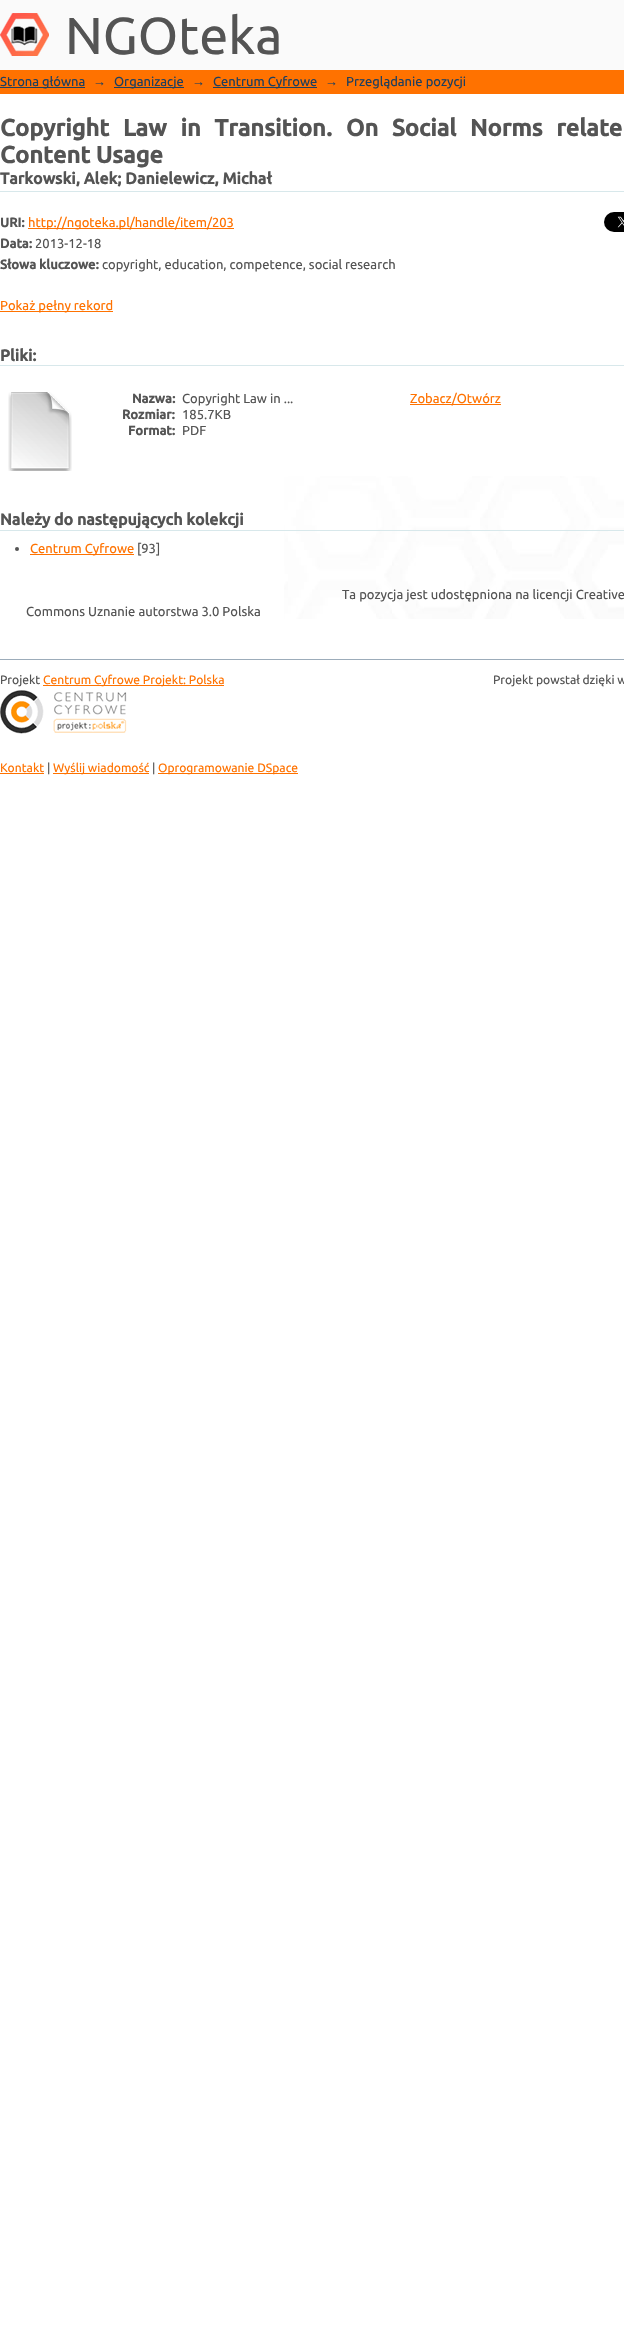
#include "include/core/SkBlurTypes.h"
#include "include/core/SkCanvas.h"
#include "include/core/SkData.h"
#include "include/core/SkFont.h"
#include "include/core/SkFontMgr.h"
#include "include/core/SkImage.h"
#include "include/core/SkMaskFilter.h"
#include "include/core/SkPaint.h"
#include "include/core/SkPathBuilder.h"
#include "include/core/SkTextBlob.h"
#include "include/effects/SkDashPathEffect.h"
#include "include/effects/SkGradientShader.h"
#include "include/utils/SkParsePath.h"

extern sk_sp<SkFontMgr> fontMgr;

void draw(SkCanvas* canvas) {
    SkPaint p;
    p.setAntiAlias(true);
    auto font = [&](const char* family, int weight, float size, bool italic = false) {
        SkFontStyle style(weight, SkFontStyle::kNormal_Width,
            italic ? SkFontStyle::kItalic_Slant : SkFontStyle::kUpright_Slant);
        SkFont result(fontMgr->matchFamilyStyle(family, style), size);
        result.setSubpixel(true);
        return result;
    };
    auto drawTracked = [&](const char* s, float x, float y, const SkFont& font, const SkPaint& ink, float letter, float word) {
        std::vector<SkGlyphID> glyphs(font.countText(s, strlen(s), SkTextEncoding::kUTF8));
        std::vector<float> xs(glyphs.size());
        font.textToGlyphs(s, strlen(s), SkTextEncoding::kUTF8, glyphs);
        font.getXPos(glyphs, xs, x);
        float extra = 0;
        for (size_t i = 0; i < glyphs.size(); i++) {
            xs[i] += extra;
            extra += letter + word * (glyphs[i] == font.unicharToGlyph(' '));
        }
        canvas->drawTextBlob(SkTextBlob::MakeFromPosHGlyphs(glyphs, xs, y, font), 0, 0, ink);
    };
    auto drawPhoto = [&](const char* path, float l, float t, float r, float b) {
        auto image = SkImages::DeferredFromEncodedData(SkData::MakeFromFileName(path));
        canvas->drawImageRect(image, SkRect::MakeLTRB(l, t, r, b), SkSamplingOptions());
    };
    canvas->clear(0xFFFFFFFF);
    p.setColor(0xFFFAFAFA);
    canvas->drawRect(SkRect::MakeLTRB(0, 0, 624, 70), p);
    drawPhoto("media/1.png", 0, 13, 49, 56);
    auto font1 = font("Ubuntu", 400, 52);
    p.setColor(0xFF545454);
    canvas->drawString("NGOteka", 65, 54, font1, p);
    p.setColor(0xFFFF7200);
    canvas->drawRect(SkRect::MakeLTRB(0, 70, 624, 94), p);
    p.setColor(0xFF1F3F5E);
    canvas->drawRect(SkRect::MakeLTRB(0, 87, 85, 88), p);
    auto font2 = font("Ubuntu", 400, 13);
    canvas->drawString("Strona główna", 0, 86, font2, p);
    auto font3 = font("Liberation Sans", 400, 13);
    canvas->drawString("→", 93, 86, font3, p);
    canvas->drawRect(SkRect::MakeLTRB(114, 87, 184, 88), p);
    canvas->drawString("Organizacje", 114, 86, font2, p);
    canvas->drawString("→", 192, 86, font3, p);
    canvas->drawRect(SkRect::MakeLTRB(213, 87, 317, 88), p);
    canvas->drawString("Centrum Cyfrowe", 213, 86, font2, p);
    canvas->drawString("→", 325, 86, font3, p);
    canvas->drawString("Przeglądanie pozycji", 346, 86, font2, p);
    drawPhoto("media/2.png", 284, 476, 624, 619);
    auto font4 = font("Ubuntu", 700, 23.65f);
    p.setColor(0xFF545454);
    drawTracked("Copyright Law in Transition. On Social Norms relate", 0, 136, font4, p, 0, 8.25f);
    canvas->drawString("Content Usage", 0, 163, font4, p);
    p.setColor(0xFFD8E8EB);
    canvas->drawRect(SkRect::MakeLTRB(0, 191, 624, 192), p);
    auto font5 = font("Ubuntu", 700, 16);
    p.setColor(0xFF545454);
    canvas->drawString("Tarkowski, Alek; Danielewicz, Michał", 0, 184, font5, p);
    auto font6 = font("Ubuntu", 700, 13);
    canvas->drawString("URI:", 0, 227, font6, p);
    p.setColor(0xFFFF7200);
    canvas->drawRect(SkRect::MakeLTRB(28, 228, 234, 229), p);
    canvas->drawString("http://ngoteka.pl/handle/item/203", 28, 227, font2, p);
    drawPhoto("media/3.png", 604, 212, 624, 232);
    p.setColor(0xFF545454);
    canvas->drawString("Data:", 0, 248, font6, p);
    canvas->drawString("2013-12-18", 35, 248, font2, p);
    canvas->drawString("Słowa kluczowe:", 0, 269, font6, p);
    canvas->drawString("copyright, education, competence, social research", 102, 269, font2, p);
    p.setColor(0xFFFF7200);
    canvas->drawRect(SkRect::MakeLTRB(0, 311, 113, 312), p);
    canvas->drawString("Pokaż pełny rekord", 0, 310, font2, p);
    p.setColor(0xFFD8E8EB);
    canvas->drawRect(SkRect::MakeLTRB(0, 365, 624, 366), p);
    p.setColor(0xFF545454);
    canvas->drawString("Pliki:", 0, 361, font5, p);
    drawPhoto("media/4.png", 8, 392, 72, 471);
    canvas->drawString("Nazwa:", 132, 403, font6, p);
    canvas->drawString("Copyright Law in ...", 182, 403, font2, p);
    canvas->drawString("Rozmiar:", 122, 419, font6, p);
    canvas->drawString("185.7KB", 182, 419, font2, p);
    canvas->drawString("Format:", 128, 435, font6, p);
    canvas->drawString("PDF", 182, 435, font2, p);
    p.setColor(0xFFFF7200);
    canvas->drawRect(SkRect::MakeLTRB(410, 404, 457, 405), p);
    canvas->drawString("Zobacz/Otwórz", 410, 403, font2, p);
    canvas->drawRect(SkRect::MakeLTRB(457, 404, 501, 405), p);
    p.setColor(0xFFD8E8EB);
    canvas->drawRect(SkRect::MakeLTRB(0, 530, 624, 531), p);
    p.setColor(0xFF545454);
    canvas->drawString("Należy do następujących kolekcji", 0, 525, font5, p);
    canvas->drawCircle(17, 549, 2, p);
    p.setColor(0xFFFF7200);
    canvas->drawRect(SkRect::MakeLTRB(30, 554, 134, 555), p);
    canvas->drawString("Centrum Cyfrowe", 30, 553, font2, p);
    p.setColor(0xFF545454);
    {
        const struct { const char* s; float x, y; } items[] = {
            {"[93]", 137, 553},
            {"Ta pozycja jest udostępniona na licencji Creative", 342, 599},
            {"Commons Uznanie autorstwa 3.0 Polska", 26, 616},
        };
        for (auto [s, x, y] : items) {
            canvas->drawString(s, x, y, font2, p);
        }
    }
    p.setColor(0xFF9CACBA);
    canvas->drawRect(SkRect::MakeLTRB(0, 659, 624, 660), p);
    auto font7 = font("Ubuntu", 400, 12.1f);
    p.setColor(0xFF545454);
    canvas->drawString("Projekt", 0, 684, font7, p);
    p.setColor(0xFFFF7200);
    canvas->drawRect(SkRect::MakeLTRB(43, 685, 224, 686), p);
    canvas->drawString("Centrum Cyfrowe Projekt: Polska", 43, 684, font7, p);
    drawPhoto("media/5.png", 0, 690, 127, 734);
    p.setColor(0xFF545454);
    canvas->drawString("Projekt powstał dzięki w", 493, 684, font7, p);
    p.setColor(0xFFFF7200);
    canvas->drawString("Kontakt", 0, 772, font7, p);
    canvas->drawRect(SkRect::MakeLTRB(0, 773, 44, 774), p);
    p.setColor(0xFF545454);
    canvas->drawString("|", 47, 772, font7, p);
    p.setColor(0xFFFF7200);
    canvas->drawRect(SkRect::MakeLTRB(53, 773, 149, 774), p);
    canvas->drawString("Wyślij wiadomość", 53, 772, font7, p);
    p.setColor(0xFF545454);
    canvas->drawString("|", 152, 772, font7, p);
    p.setColor(0xFFFF7200);
    canvas->drawRect(SkRect::MakeLTRB(158, 773, 298, 774), p);
    canvas->drawString("Oprogramowanie DSpace", 158, 772, font7, p);
}
